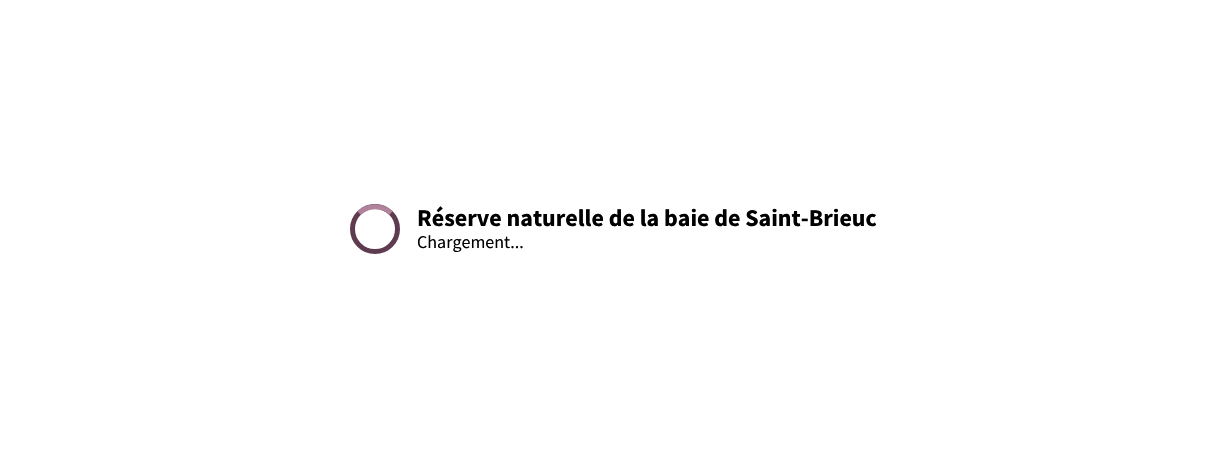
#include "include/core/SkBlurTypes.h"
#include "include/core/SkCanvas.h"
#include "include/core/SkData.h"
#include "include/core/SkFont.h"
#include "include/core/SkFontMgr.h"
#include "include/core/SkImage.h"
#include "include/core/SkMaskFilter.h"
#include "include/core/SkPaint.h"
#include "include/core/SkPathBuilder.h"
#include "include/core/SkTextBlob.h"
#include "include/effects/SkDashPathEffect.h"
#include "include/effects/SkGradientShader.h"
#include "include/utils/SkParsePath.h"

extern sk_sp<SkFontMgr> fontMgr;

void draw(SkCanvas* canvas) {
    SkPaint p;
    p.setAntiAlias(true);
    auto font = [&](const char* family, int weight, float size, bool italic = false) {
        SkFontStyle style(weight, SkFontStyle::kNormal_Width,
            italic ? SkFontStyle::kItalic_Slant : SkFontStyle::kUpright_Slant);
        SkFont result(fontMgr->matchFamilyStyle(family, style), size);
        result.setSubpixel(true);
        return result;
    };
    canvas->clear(0xFFFFFFFF);
    p.setStyle(SkPaint::kStroke_Style);
    p.setStrokeWidth(5);
    p.setColor(0xFF5E3B4F);
    canvas->drawCircle(375, 229, 22.5f, p);
    p.setColor(0xFFB0829C);
    canvas->drawPath(SkPathBuilder().moveTo(359, 213).cubicTo(368, 204.5f, 382, 204.5f, 391, 213).detach(), p);
    auto font1 = font("Source Sans Pro", 700, 24);
    p.setStyle(SkPaint::kFill_Style);
    p.setColor(0xFF000000);
    canvas->drawString("Réserve naturelle de la baie de Saint-Brieuc", 417, 226, font1, p);
    auto font2 = font("Source Sans Pro", 400, 18);
    canvas->drawString("Chargement...", 417, 248, font2, p);
}
